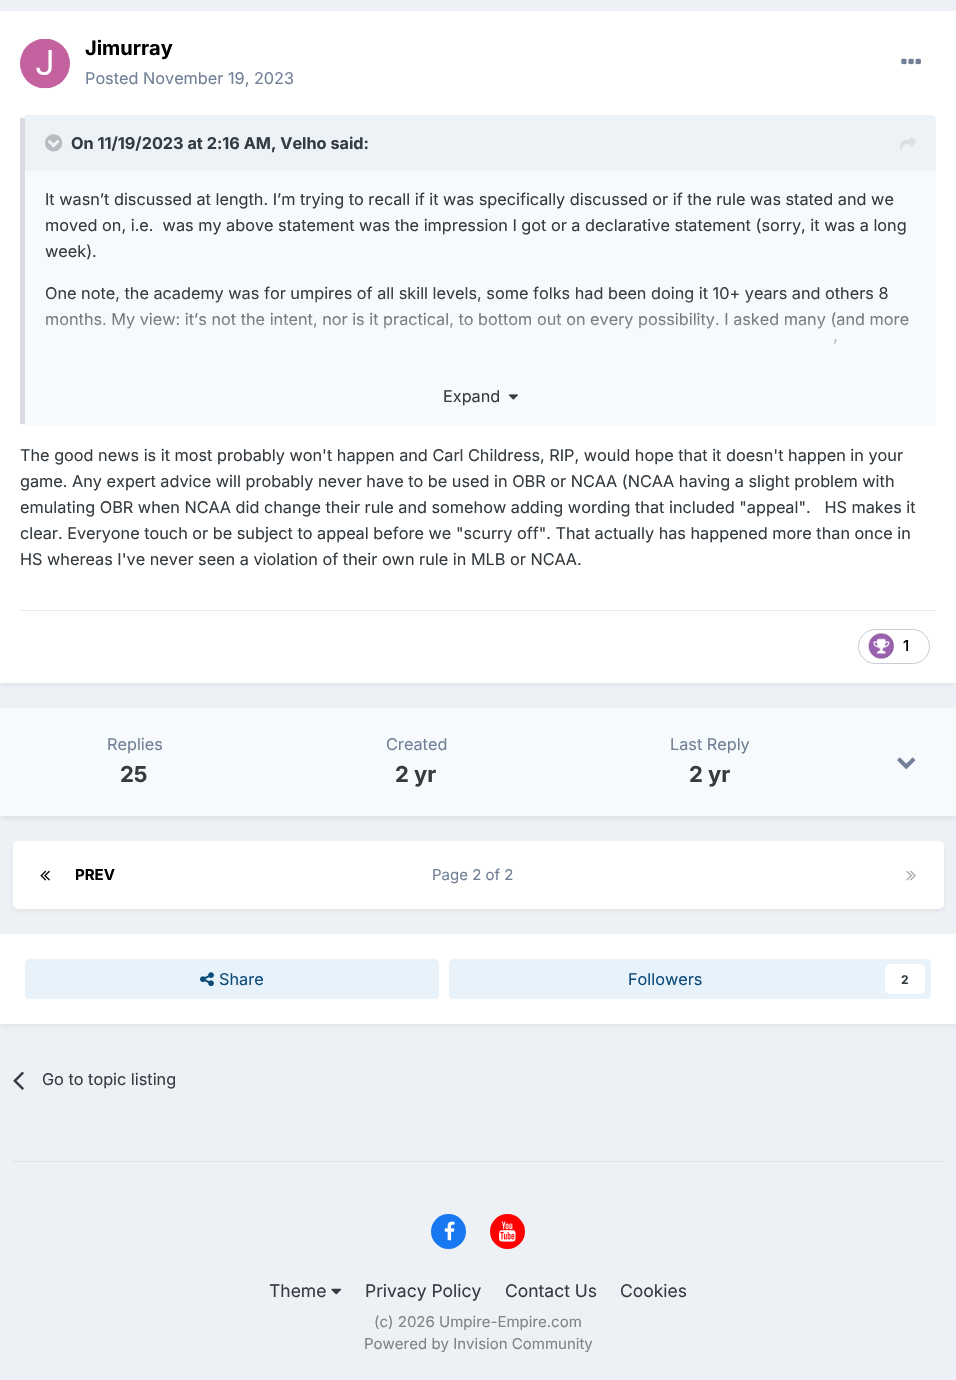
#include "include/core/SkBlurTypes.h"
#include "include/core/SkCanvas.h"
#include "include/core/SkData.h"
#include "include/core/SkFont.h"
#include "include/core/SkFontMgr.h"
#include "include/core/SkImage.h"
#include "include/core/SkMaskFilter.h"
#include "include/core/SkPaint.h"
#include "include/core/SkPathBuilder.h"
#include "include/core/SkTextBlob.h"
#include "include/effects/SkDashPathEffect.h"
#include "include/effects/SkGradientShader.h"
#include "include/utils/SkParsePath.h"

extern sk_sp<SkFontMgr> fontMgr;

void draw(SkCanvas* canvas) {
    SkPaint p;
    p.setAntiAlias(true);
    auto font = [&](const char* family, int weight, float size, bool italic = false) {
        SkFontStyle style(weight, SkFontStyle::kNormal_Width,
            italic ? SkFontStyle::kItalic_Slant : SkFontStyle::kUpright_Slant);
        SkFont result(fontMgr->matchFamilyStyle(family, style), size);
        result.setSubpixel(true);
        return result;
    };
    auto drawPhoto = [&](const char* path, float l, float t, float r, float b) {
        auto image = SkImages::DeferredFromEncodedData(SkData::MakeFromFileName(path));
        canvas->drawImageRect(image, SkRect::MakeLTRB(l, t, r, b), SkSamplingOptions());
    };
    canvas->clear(0xFFEDF0F4);
    p.setColor(0x1A2D3748);
    p.setMaskFilter(SkMaskFilter::MakeBlur(kNormal_SkBlurStyle, 2.5f));
    canvas->drawRect(SkRect::MakeLTRB(1, 15, 955, 684), p);
    p.setMaskFilter(nullptr);
    p.setColor(0xFFFFFFFF);
    canvas->drawRect(SkRect::MakeLTRB(0, 11, 956, 683), p);
    drawPhoto("media/1.png", 20, 39, 70, 89);
    auto font1 = font("Inter", 700, 20);
    p.setColor(0xFF000000);
    canvas->drawString("Jimurray", 85, 55, font1, p);
    auto font2 = font("Inter", 400, 16.25f);
    p.setColor(0xFF718096);
    canvas->drawString("Posted November 19, 2023", 85, 84, font2, p);
    drawPhoto("media/2.png", 901, 58, 921, 65);
    p.setColor(0xFFF7FAFC);
    canvas->drawRoundRect(SkRect::MakeLTRB(20, 115, 936, 426), 5, 5, p);
    p.setColor(0x262D3748);
    canvas->drawRect(SkRect::MakeLTRB(20, 118, 25, 424), p);
    p.setColor(0xFFEDF2F7);
    canvas->drawPath(SkPathBuilder().moveTo(25, 115).lineTo(931, 115).cubicTo(934, 115, 936, 117, 936, 120).lineTo(936, 171).lineTo(25, 171).close().detach(), p);
    drawPhoto("media/3.png", 45, 134, 63, 152);
    auto font3 = font("Inter", 700, 16.25f);
    p.setColor(0xFF353C41);
    canvas->drawString("On 11/19/2023 at 2:16 AM, Velho said:", 71, 149, font3, p);
    drawPhoto("media/4.png", 900, 137, 916, 151);
    {
        const struct { const char* s; float x, y; } items[] = {
            {"It wasn’t discussed at length. I’m trying to recall if it was specifically discussed or if the rule was stated and we", 45, 205},
            {"moved on, i.e.  was my above statement was the impression I got or a declarative statement (sorry, it was a long", 45, 231},
            {"week).", 45, 257},
            {"One note, the academy was for umpires of all skill levels, some folks had been doing it 10+ years and others 8", 45, 299},
            {"months. My view: it’s not the intent, nor is it practical, to bottom out on every possibility. I asked many (and more", 45, 325},
            {"’", 833, 351},
        };
        for (auto [s, x, y] : items) {
            canvas->drawString(s, x, y, font2, p);
        }
    }
    {
        const SkColor colors[] = {0x03F7FAFC, 0xFCF7FAFC};
        const float stops[] = {0, 1};
        const SkPoint ends[] = {{481, 294}, {481, 369}};
        p.setShader(SkGradientShader::MakeLinear(ends, colors, stops, 2, SkTileMode::kClamp));
        p.setAlpha(255);
    }
    canvas->drawRect(SkRect::MakeLTRB(46, 295, 909, 344), p);
    p.setShader(nullptr);
    p.setColor(0xFF353C41);
    canvas->drawString("Expand", 443, 402, font2, p);
    drawPhoto("media/5.png", 508, 394, 518, 400);
    {
        const struct { const char* s; float x, y; } items[] = {
            {"The good news is it most probably won't happen and Carl Childress, RIP, would hope that it doesn't happen in your", 20, 461},
            {"game. Any expert advice will probably never have to be used in OBR or NCAA (NCAA having a slight problem with", 20, 487},
            {"emulating OBR when NCAA did change their rule and somehow adding wording that included \"appeal\".   HS makes it", 20, 513},
            {"clear. Everyone touch or be subject to appeal before we \"scurry off\". That actually has happened more than once in", 20, 539},
            {"HS whereas I've never seen a violation of their own rule in MLB or NCAA.", 20, 565},
        };
        for (auto [s, x, y] : items) {
            canvas->drawString(s, x, y, font2, p);
        }
    }
    p.setColor(0xFFEBECEC);
    canvas->drawRect(SkRect::MakeLTRB(20, 610, 936, 611), p);
    p.setStyle(SkPaint::kStroke_Style);
    p.setStrokeWidth(1);
    p.setColor(0xFFC6CCD5);
    canvas->drawRoundRect(SkRect::MakeLTRB(858.5f, 629.5f, 929.5f, 663.5f), 17, 17, p);
    drawPhoto("media/6.png", 868, 633, 894, 659);
    auto font4 = font("Inter", 500, 15);
    p.setStyle(SkPaint::kFill_Style);
    p.setColor(0xFF000000);
    canvas->drawString("1", 903, 651, font4, p);
    p.setColor(0x1A2D3748);
    p.setMaskFilter(SkMaskFilter::MakeBlur(kNormal_SkBlurStyle, 2.5f));
    canvas->drawRect(SkRect::MakeLTRB(1, 711, 955, 818), p);
    p.setMaskFilter(nullptr);
    p.setColor(0xFFF7FAFC);
    canvas->drawRect(SkRect::MakeLTRB(0, 708, 956, 816), p);
    p.setColor(0xFF718096);
    canvas->drawString("Replies", 107, 750, font2, p);
    auto font5 = font("Inter", 700, 22);
    p.setColor(0xFF353C41);
    canvas->drawString("25", 120, 782, font5, p);
    p.setColor(0xFF718096);
    canvas->drawString("Created", 386, 750, font2, p);
    p.setColor(0xFF353C41);
    canvas->drawString("2 yr", 395, 782, font5, p);
    p.setColor(0xFF718096);
    canvas->drawString("Last Reply", 670, 750, font2, p);
    p.setColor(0xFF353C41);
    canvas->drawString("2 yr", 689, 782, font5, p);
    drawPhoto("media/7.png", 897, 757, 916, 769);
    p.setColor(0x1A2D3748);
    p.setMaskFilter(SkMaskFilter::MakeBlur(kNormal_SkBlurStyle, 2.5f));
    canvas->drawRoundRect(SkRect::MakeLTRB(14, 845, 943, 910), 4, 4, p);
    p.setMaskFilter(nullptr);
    p.setColor(0xFFFFFFFF);
    canvas->drawRoundRect(SkRect::MakeLTRB(13, 841, 944, 909), 5, 5, p);
    drawPhoto("media/8.png", 40, 870, 50, 881);
    auto font6 = font("Inter", 700, 15);
    p.setColor(0xFF000000);
    canvas->drawString("PREV", 75, 880, font6, p);
    auto font7 = font("Inter", 400, 15);
    p.setColor(0xFF718096);
    canvas->drawString("Page 2 of 2", 432, 880, font7, p);
    drawPhoto("media/9.png", 906, 870, 916, 881);
    p.setColor(0x1A2D3748);
    p.setMaskFilter(SkMaskFilter::MakeBlur(kNormal_SkBlurStyle, 2.5f));
    canvas->drawRect(SkRect::MakeLTRB(1, 938, 955, 1025), p);
    p.setMaskFilter(nullptr);
    p.setColor(0xFFFFFFFF);
    canvas->drawRect(SkRect::MakeLTRB(0, 934, 956, 1024), p);
    p.setColor(0xFFE8F2FA);
    canvas->drawRoundRect(SkRect::MakeLTRB(25, 959, 439, 999), 5, 5, p);
    drawPhoto("media/10.png", 200, 972, 214, 987);
    p.setColor(0xFF0E4C79);
    canvas->drawString("Share", 219, 985, font2, p);
    p.setColor(0xFFE8F2FA);
    canvas->drawRoundRect(SkRect::MakeLTRB(449, 959, 931, 999), 5, 5, p);
    p.setColor(0xFF0E4C79);
    canvas->drawString("Followers", 628, 985, font2, p);
    p.setColor(0xFFFFFFFF);
    canvas->drawRoundRect(SkRect::MakeLTRB(885, 964, 925, 994), 5, 5, p);
    auto font8 = font("Inter", 700, 12);
    p.setColor(0xFF353C41);
    canvas->drawString("2", 901, 984, font8, p);
    drawPhoto("media/11.png", 13, 1071, 24, 1090);
    canvas->drawString("Go to topic listing", 42, 1085, font2, p);
    p.setColor(0xFFDEE2E6);
    canvas->drawRect(SkRect::MakeLTRB(13, 1161, 944, 1162), p);
    p.setColor(0xFF1778F2);
    canvas->drawCircle(448.5f, 1231.5f, 17.5f, p);
    drawPhoto("media/12.png", 444, 1221, 455, 1241);
    p.setColor(0xFFFF0000);
    canvas->drawCircle(507.5f, 1231.5f, 17.5f, p);
    drawPhoto("media/13.png", 499, 1221, 516, 1242);
    auto font9 = font("Inter", 400, 17.5f);
    p.setColor(0xFF353C41);
    canvas->drawString("Theme", 269, 1297, font9, p);
    drawPhoto("media/14.png", 331, 1288, 342, 1295);
    {
        const struct { const char* s; float x, y; } items[] = {
            {"Privacy Policy", 365, 1297},
            {"Contact Us", 505, 1297},
            {"Cookies", 620, 1297},
        };
        for (auto [s, x, y] : items) {
            canvas->drawString(s, x, y, font9, p);
        }
    }
    p.setColor(0xFF7F8489);
    canvas->drawString("(c) 2026 Umpire-Empire.com", 374, 1327, font7, p);
    canvas->drawString("Powered by Invision Community", 364, 1349, font7, p);
}
